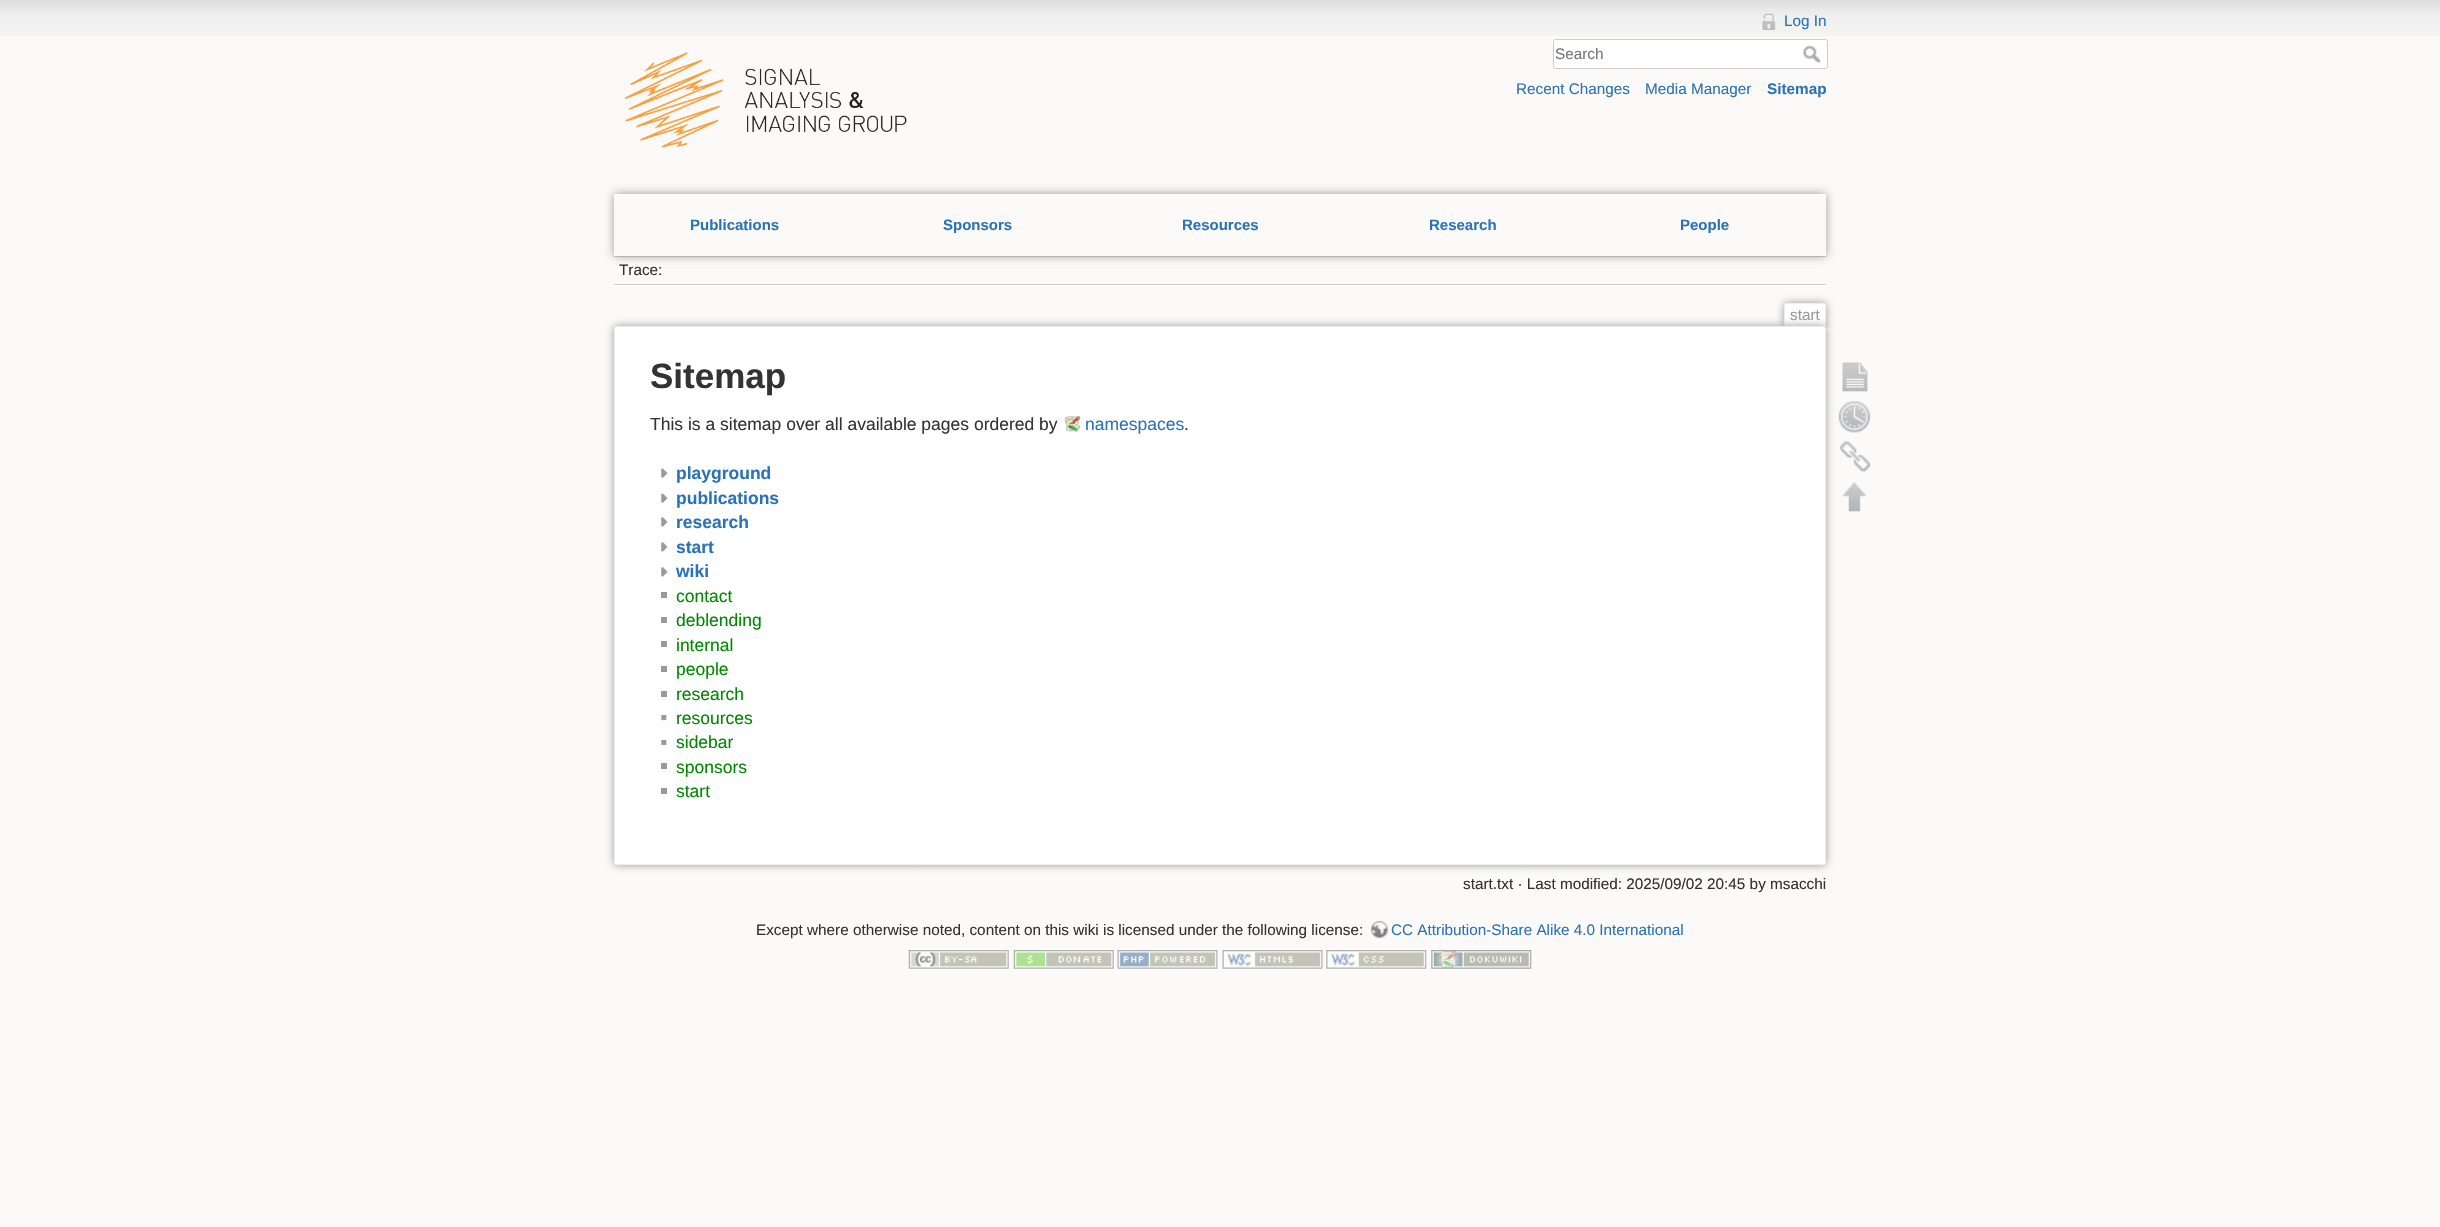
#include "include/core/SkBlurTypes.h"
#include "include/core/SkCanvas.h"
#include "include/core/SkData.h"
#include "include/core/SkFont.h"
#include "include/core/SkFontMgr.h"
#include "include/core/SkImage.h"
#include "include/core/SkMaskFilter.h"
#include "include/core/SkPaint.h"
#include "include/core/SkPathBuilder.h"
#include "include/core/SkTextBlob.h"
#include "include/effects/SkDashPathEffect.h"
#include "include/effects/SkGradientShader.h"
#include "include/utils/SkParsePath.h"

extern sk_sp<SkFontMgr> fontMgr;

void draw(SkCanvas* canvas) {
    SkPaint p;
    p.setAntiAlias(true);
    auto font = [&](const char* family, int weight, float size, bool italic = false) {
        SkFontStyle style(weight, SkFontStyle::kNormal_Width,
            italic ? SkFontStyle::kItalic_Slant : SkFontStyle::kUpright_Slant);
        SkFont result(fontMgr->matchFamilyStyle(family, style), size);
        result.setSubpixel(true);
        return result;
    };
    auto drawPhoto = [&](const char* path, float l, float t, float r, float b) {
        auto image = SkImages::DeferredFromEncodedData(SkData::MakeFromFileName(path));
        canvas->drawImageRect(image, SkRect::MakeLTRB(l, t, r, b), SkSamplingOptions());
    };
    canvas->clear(0xFFFBFAF9);
    drawPhoto("media/1.png", 0, 0, 2440, 36);
    drawPhoto("media/2.png", 625, 52, 907, 148);
    drawPhoto("media/3.png", 1762, 13, 1776, 30);
    auto font1 = font("Liberation Sans", 400, 15.3f);
    p.setColor(0xFF2B73B7);
    canvas->drawString("Log In", 1784, 26, font1, p);
    p.setColor(0xFFFFFFFF);
    canvas->drawRoundRect(SkRect::MakeLTRB(1553.5f, 39.5f, 1827.5f, 68.5f), 2, 2, p);
    p.setStyle(SkPaint::kStroke_Style);
    p.setStrokeWidth(1);
    p.setColor(0xFFCCCCCC);
    canvas->drawRoundRect(SkRect::MakeLTRB(1553.5f, 39.5f, 1827.5f, 68.5f), 2, 2, p);
    p.setStyle(SkPaint::kFill_Style);
    p.setColor(0xFF757575);
    canvas->drawString("Search", 1555, 59, font1, p);
    drawPhoto("media/4.png", 1802, 45, 1820, 63);
    p.setColor(0xFF2B73B7);
    canvas->drawString("Recent Changes", 1516, 94, font1, p);
    canvas->drawString("Media Manager", 1645, 94, font1, p);
    auto font2 = font("Liberation Sans", 700, 15.3f);
    canvas->drawString("Sitemap", 1767, 94, font2, p);
    p.setColor(0xFFCCCCCC);
    canvas->drawRect(SkRect::MakeLTRB(614, 256, 1826, 257), p);
    p.setColor(0xFFFFFFFF);
    canvas->drawRect(SkRect::MakeLTRB(614, 258, 1826, 259), p);
    canvas->save();
    canvas->clipPath(SkPathBuilder(SkPathFillType::kEvenOdd).moveTo(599, 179).lineTo(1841, 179).lineTo(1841, 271).lineTo(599, 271).close().moveTo(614, 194).lineTo(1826, 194).lineTo(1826, 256).lineTo(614, 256).close().detach(), true);
    p.setColor(0xFF999999);
    p.setMaskFilter(SkMaskFilter::MakeBlur(kNormal_SkBlurStyle, 4.5f));
    canvas->drawRect(SkRect::MakeLTRB(614, 194, 1826, 256), p);
    p.setMaskFilter(nullptr);
    canvas->restore();
    auto font3 = font("Liberation Sans", 700, 15);
    p.setColor(0xFF2B73B7);
    {
        const struct { const char* s; float x, y; } items[] = {
            {"Publications", 690, 230},
            {"Sponsors", 943, 230},
            {"Resources", 1182, 230},
            {"Research", 1429, 230},
            {"People", 1680, 230},
        };
        for (auto [s, x, y] : items) {
            canvas->drawString(s, x, y, font3, p);
        }
    }
    p.setColor(0xFFFFFFFF);
    canvas->drawRect(SkRect::MakeLTRB(614, 285, 1826, 286), p);
    p.setColor(0xFFCCCCCC);
    canvas->drawRect(SkRect::MakeLTRB(614, 284, 1826, 285), p);
    p.setColor(0xFF333333);
    canvas->drawString("Trace:", 619, 275, font1, p);
    canvas->save();
    canvas->clipRect(SkRect::MakeLTRB(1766, 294, 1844, 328));
    p.setColor(0xFF999999);
    p.setMaskFilter(SkMaskFilter::MakeBlur(kNormal_SkBlurStyle, 4));
    canvas->drawRoundRect(SkRect::MakeLTRB(1784, 303, 1826, 328), 2.5f, 2.5f, p);
    p.setMaskFilter(nullptr);
    canvas->restore();
    p.setColor(0xFFFFFFFF);
    canvas->drawPath(SkPathBuilder().moveTo(1786, 304).lineTo(1824, 304).cubicTo(1824.5f, 304, 1825, 304.5f, 1825, 305).lineTo(1825, 328).lineTo(1785, 328).lineTo(1785, 305).cubicTo(1785, 304.5f, 1785.5f, 304, 1786, 304).close().detach(), p);
    {
        const struct { float l, t, r, b; SkColor color; } items[] = {
            {1785, 303, 1825, 304, 0xFFEEEEEE},
            {1825, 304, 1826, 328, 0xFFEEEEEE},
            {1784, 304, 1785, 328, 0xFFEEEEEE},
        };
        for (auto [l, t, r, b, color] : items) {
            p.setColor(color);
            canvas->drawRect(SkRect::MakeLTRB(l, t, r, b), p);
        }
    }
    p.setColor(0xFF999999);
    canvas->drawString("start", 1790, 320, font1, p);
    p.setMaskFilter(SkMaskFilter::MakeBlur(kNormal_SkBlurStyle, 4.5f));
    canvas->drawRoundRect(SkRect::MakeLTRB(614, 326, 1826, 865), 2.5f, 2.5f, p);
    p.setMaskFilter(nullptr);
    p.setColor(0xFFFFFFFF);
    canvas->drawRoundRect(SkRect::MakeLTRB(614.5f, 326.5f, 1825.5f, 864.5f), 2, 2, p);
    p.setStyle(SkPaint::kStroke_Style);
    p.setColor(0xFFEEEEEE);
    canvas->drawRoundRect(SkRect::MakeLTRB(614.5f, 326.5f, 1825.5f, 864.5f), 2, 2, p);
    auto font4 = font("Liberation Sans", 700, 35);
    p.setStyle(SkPaint::kFill_Style);
    p.setColor(0xFF333333);
    canvas->drawString("Sitemap", 650, 388, font4, p);
    auto font5 = font("Liberation Sans", 400, 17.5f);
    canvas->drawString("This is a sitemap over all available pages ordered by", 650, 430, font5, p);
    drawPhoto("media/5.png", 1064, 416, 1081, 432);
    p.setColor(0xFF2B73B7);
    canvas->drawString("namespaces", 1085, 430, font5, p);
    p.setColor(0xFF333333);
    canvas->drawString(".", 1184, 430, font5, p);
    drawPhoto("media/6.png", 661, 468, 668, 478);
    auto font6 = font("Liberation Sans", 700, 17.5f);
    p.setColor(0xFF2B73B7);
    canvas->drawString("playground", 676, 479, font6, p);
    drawPhoto("media/6.png", 661, 493, 668, 503);
    canvas->drawString("publications", 676, 504, font6, p);
    drawPhoto("media/7.png", 661, 517, 668, 527);
    canvas->drawString("research", 676, 528, font6, p);
    drawPhoto("media/7.png", 661, 542, 668, 552);
    canvas->drawString("start", 676, 553, font6, p);
    drawPhoto("media/7.png", 661, 567, 668, 577);
    canvas->drawString("wiki", 676, 577, font6, p);
    p.setColor(0xFF999999);
    canvas->drawRect(SkRect::MakeLTRB(661, 592, 667, 598), p);
    p.setColor(0xFF008800);
    canvas->drawString("contact", 676, 602, font5, p);
    p.setColor(0xFF999999);
    canvas->drawRect(SkRect::MakeLTRB(661, 617, 667, 623), p);
    p.setColor(0xFF008800);
    canvas->drawString("deblending", 676, 626, font5, p);
    p.setColor(0xFF999999);
    canvas->drawRect(SkRect::MakeLTRB(661, 641, 667, 647), p);
    p.setColor(0xFF008800);
    canvas->drawString("internal", 676, 651, font5, p);
    p.setColor(0xFF999999);
    canvas->drawRect(SkRect::MakeLTRB(661, 666, 667, 672), p);
    p.setColor(0xFF008800);
    canvas->drawString("people", 676, 675, font5, p);
    p.setColor(0xFF999999);
    canvas->drawRect(SkRect::MakeLTRB(661, 691, 667, 697), p);
    p.setColor(0xFF008800);
    canvas->drawString("research", 676, 700, font5, p);
    drawPhoto("media/8.png", 661, 715, 667, 721);
    canvas->drawString("resources", 676, 724, font5, p);
    drawPhoto("media/8.png", 661, 740, 667, 746);
    canvas->drawString("sidebar", 676, 748, font5, p);
    p.setColor(0xFF999999);
    canvas->drawRect(SkRect::MakeLTRB(661, 763, 667, 769), p);
    p.setColor(0xFF008800);
    canvas->drawString("sponsors", 676, 773, font5, p);
    p.setColor(0xFF999999);
    canvas->drawRect(SkRect::MakeLTRB(661, 788, 667, 794), p);
    p.setColor(0xFF008800);
    canvas->drawString("start", 676, 797, font5, p);
    p.setColor(0xFF333333);
    canvas->drawString("start.txt · Last modified: 2025/09/02 20:45 by msacchi", 1463, 889, font1, p);
    drawPhoto("media/9.png", 1842, 362, 1868, 392);
    drawPhoto("media/10.png", 1838, 401, 1871, 433);
    drawPhoto("media/11.png", 1840, 441, 1871, 472);
    drawPhoto("media/12.png", 1842, 482, 1867, 512);
    canvas->drawString("Except where otherwise noted, content on this wiki is licensed under the following license:", 756, 935, font1, p);
    drawPhoto("media/13.png", 1371, 921, 1388, 939);
    p.setColor(0xFF2B73B7);
    canvas->drawString("CC Attribution-Share Alike 4.0 International", 1391, 935, font1, p);
    drawPhoto("media/14.png", 908, 950, 1009, 969);
    drawPhoto("media/15.png", 1013, 950, 1114, 969);
    drawPhoto("media/16.png", 1117, 950, 1218, 969);
    drawPhoto("media/17.png", 1222, 950, 1323, 969);
    drawPhoto("media/18.png", 1326, 950, 1427, 969);
    drawPhoto("media/19.png", 1431, 950, 1532, 969);
}
